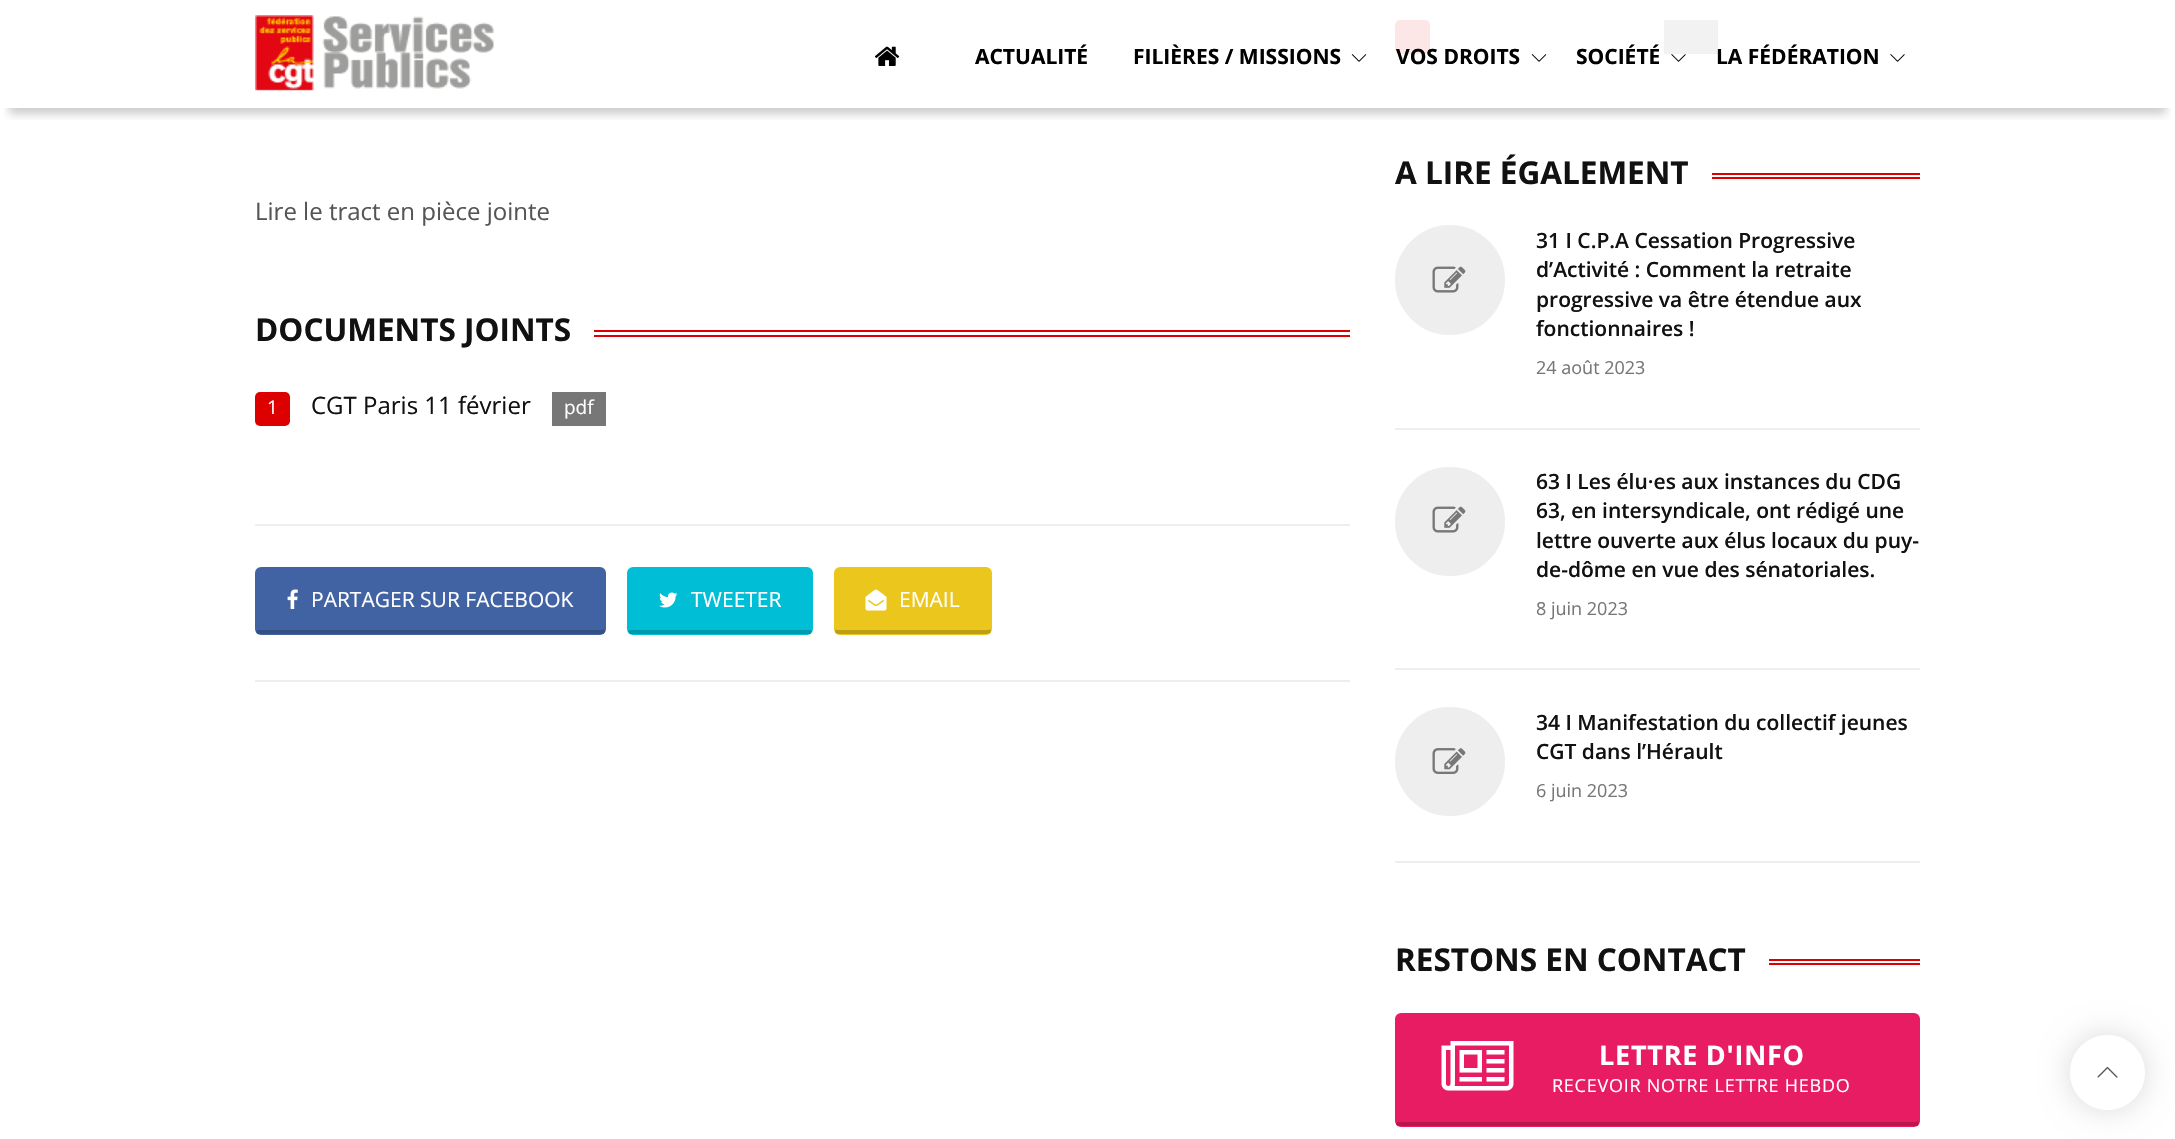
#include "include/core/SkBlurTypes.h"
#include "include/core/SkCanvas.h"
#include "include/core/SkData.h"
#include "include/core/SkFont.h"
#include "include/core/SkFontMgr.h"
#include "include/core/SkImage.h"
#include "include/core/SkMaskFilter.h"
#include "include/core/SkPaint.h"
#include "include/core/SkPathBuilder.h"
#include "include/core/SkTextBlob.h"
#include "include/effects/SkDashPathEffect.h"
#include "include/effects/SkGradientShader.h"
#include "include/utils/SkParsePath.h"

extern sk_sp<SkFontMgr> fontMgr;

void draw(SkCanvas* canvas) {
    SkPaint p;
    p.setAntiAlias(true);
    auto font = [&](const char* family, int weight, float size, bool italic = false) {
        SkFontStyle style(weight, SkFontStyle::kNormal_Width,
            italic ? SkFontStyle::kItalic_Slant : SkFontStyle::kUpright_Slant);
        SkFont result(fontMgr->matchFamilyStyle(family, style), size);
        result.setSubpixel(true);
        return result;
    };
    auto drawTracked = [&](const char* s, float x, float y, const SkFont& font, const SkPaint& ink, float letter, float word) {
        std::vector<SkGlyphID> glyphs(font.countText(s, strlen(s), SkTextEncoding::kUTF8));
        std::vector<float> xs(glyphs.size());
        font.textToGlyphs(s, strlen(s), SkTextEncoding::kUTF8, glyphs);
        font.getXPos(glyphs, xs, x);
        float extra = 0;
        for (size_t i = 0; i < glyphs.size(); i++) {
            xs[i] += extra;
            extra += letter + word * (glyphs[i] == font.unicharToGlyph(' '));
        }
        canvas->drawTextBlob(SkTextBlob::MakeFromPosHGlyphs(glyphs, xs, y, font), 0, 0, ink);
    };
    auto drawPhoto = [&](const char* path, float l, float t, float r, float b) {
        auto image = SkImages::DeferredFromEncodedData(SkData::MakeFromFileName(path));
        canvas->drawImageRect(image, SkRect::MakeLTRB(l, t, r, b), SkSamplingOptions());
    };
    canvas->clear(0xFFFFFFFF);
    p.setColor(0xFFDD0000);
    canvas->drawRoundRect(SkRect::MakeLTRB(1395, 20, 1430, 54), 5, 5, p);
    p.setColor(0xFF777777);
    canvas->drawRect(SkRect::MakeLTRB(1664, 20, 1718, 54), p);
    canvas->save();
    canvas->clipRect(SkRect::MakeLTRB(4, 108, 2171, 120));
    p.setColor(0x33000000);
    p.setMaskFilter(SkMaskFilter::MakeBlur(kNormal_SkBlurStyle, 4.5f));
    canvas->drawRect(SkRect::MakeLTRB(9, 23, 2166, 114), p);
    p.setMaskFilter(nullptr);
    canvas->restore();
    p.setColor(0xE6FFFFFF);
    canvas->drawRect(SkRect::MakeLTRB(1395, 20, 1718, 54), p);
    drawPhoto("media/1.png", 255, 15, 494, 91);
    drawPhoto("media/2.png", 874, 46, 900, 66);
    auto font1 = font("Open Sans", 700, 21);
    p.setColor(0xFF000000);
    canvas->drawString("ACTUALITÉ", 975, 64, font1, p);
    canvas->drawString("FILIÈRES / MISSIONS", 1133, 64, font1, p);
    drawPhoto("media/3.png", 1351, 54, 1367, 62);
    canvas->drawString("VOS DROITS", 1396, 64, font1, p);
    drawPhoto("media/3.png", 1531, 54, 1547, 62);
    canvas->drawString("SOCIÉTÉ", 1576, 64, font1, p);
    drawPhoto("media/4.png", 1671, 54, 1686, 62);
    canvas->drawString("LA FÉDÉRATION", 1716, 64, font1, p);
    drawPhoto("media/4.png", 1890, 54, 1905, 62);
    auto font2 = font("Open Sans", 400, 24);
    p.setColor(0xFF555555);
    canvas->drawString("Lire le tract en pièce jointe", 255, 220, font2, p);
    auto font3 = font("Open Sans", 700, 31.5f);
    p.setColor(0xFF111111);
    canvas->drawString("DOCUMENTS JOINTS", 255, 341, font3, p);
    p.setColor(0xFFDD0000);
    canvas->drawRect(SkRect::MakeLTRB(594, 330, 1350, 332), p);
    canvas->drawRect(SkRect::MakeLTRB(594, 335, 1350, 337), p);
    canvas->drawRoundRect(SkRect::MakeLTRB(255, 392, 290, 426), 5, 5, p);
    auto font4 = font("Open Sans", 400, 19);
    p.setColor(0xFFFFFFFF);
    canvas->drawString("1", 267, 414, font4, p);
    p.setColor(0xFF111111);
    canvas->drawString("CGT Paris 11 février", 311, 414, font2, p);
    p.setColor(0xFF777777);
    canvas->drawRect(SkRect::MakeLTRB(552, 392, 606, 426), p);
    p.setColor(0xFFFFFFFF);
    canvas->drawString("pdf", 564, 414, font4, p);
    p.setColor(0xFFEEEEEE);
    canvas->drawRect(SkRect::MakeLTRB(255, 524, 1350, 526), p);
    p.setColor(0xFF4263A3);
    canvas->drawRoundRect(SkRect::MakeLTRB(255, 567, 606, 635), 6, 6, p);
    p.setColor(0xFF354F82);
    canvas->drawPath(SkPathBuilder().moveTo(605, 632).cubicTo(604, 633, 603, 634, 601, 634).lineTo(260, 634).cubicTo(258, 634, 257, 633, 256, 632).lineTo(257, 630).lineTo(601, 630).cubicTo(602, 630, 604, 630, 604, 628).close().detach(), p);
    drawPhoto("media/5.png", 287, 589, 298, 609);
    auto font5 = font("Open Sans", 400, 21);
    p.setColor(0xFFFFFFFF);
    canvas->drawString("PARTAGER SUR FACEBOOK", 311, 607, font5, p);
    p.setColor(0xFF00BED6);
    canvas->drawRoundRect(SkRect::MakeLTRB(627, 567, 813, 635), 6, 6, p);
    p.setColor(0x33000000);
    canvas->drawPath(SkPathBuilder().moveTo(812, 632).lineTo(810, 634).lineTo(632, 634).cubicTo(630, 634, 629, 633, 628, 632).lineTo(629, 630).lineTo(811, 630).close().detach(), p);
    drawPhoto("media/6.png", 659, 592, 678, 608);
    p.setColor(0xFFFFFFFF);
    canvas->drawString("TWEETER", 691, 607, font5, p);
    p.setColor(0xFFEBC71D);
    canvas->drawRoundRect(SkRect::MakeLTRB(834, 567, 992, 635), 6, 6, p);
    p.setColor(0xFFBC9F17);
    canvas->drawPath(SkPathBuilder().moveTo(991, 632).cubicTo(990, 633, 988, 634, 986, 634).lineTo(839, 634).cubicTo(837, 634, 836, 633, 835, 632).lineTo(836, 628).lineTo(836, 629).cubicTo(836, 630, 837, 630, 839, 630).lineTo(986, 630).cubicTo(988, 630, 989, 630, 990, 629).close().detach(), p);
    drawPhoto("media/7.png", 865, 589, 887, 611);
    p.setColor(0xFFFFFFFF);
    canvas->drawString("EMAIL", 899, 607, font5, p);
    p.setColor(0xFFEEEEEE);
    canvas->drawRect(SkRect::MakeLTRB(255, 680, 1350, 682), p);
    p.setColor(0xFF111111);
    canvas->drawString("A LIRE ÉGALEMENT", 1395, 184, font3, p);
    p.setColor(0xFFDD0000);
    canvas->drawRect(SkRect::MakeLTRB(1712, 173, 1920, 175), p);
    canvas->drawRect(SkRect::MakeLTRB(1712, 177, 1920, 179), p);
    p.setColor(0xFFEEEEEE);
    canvas->drawCircle(1450, 280, 54, p);
    p.setStyle(SkPaint::kStroke_Style);
    p.setStrokeWidth(2);
    canvas->drawCircle(1450, 280, 54, p);
    drawPhoto("media/8.png", 1432, 266, 1466, 293);
    auto font6 = font("Open Sans", 600, 21);
    p.setStyle(SkPaint::kFill_Style);
    p.setColor(0xFF111111);
    {
        const struct { const char* s; float x, y; } items[] = {
            {"31 I C.P.A Cessation Progressive", 1536, 248},
            {"d’Activité : Comment la retraite", 1536, 277},
            {"progressive va être étendue aux", 1536, 307},
            {"fonctionnaires !", 1536, 336},
        };
        for (auto [s, x, y] : items) {
            canvas->drawString(s, x, y, font6, p);
        }
    }
    auto font7 = font("Open Sans", 400, 18);
    p.setColor(0xFF777777);
    canvas->drawString("24 août 2023", 1536, 374, font7, p);
    p.setColor(0xFFEEEEEE);
    canvas->drawRect(SkRect::MakeLTRB(1395, 428, 1920, 430), p);
    canvas->drawRoundRect(SkRect::MakeLTRB(1396, 468, 1504, 575), 53.5f, 53.5f, p);
    p.setStyle(SkPaint::kStroke_Style);
    canvas->drawRoundRect(SkRect::MakeLTRB(1396, 468, 1504, 575), 53.5f, 53.5f, p);
    drawPhoto("media/8.png", 1432, 506, 1466, 533);
    p.setStyle(SkPaint::kFill_Style);
    p.setColor(0xFF111111);
    {
        const struct { const char* s; float x, y; } items[] = {
            {"63 I Les élu·es aux instances du CDG", 1536, 489},
            {"63, en intersyndicale, ont rédigé une", 1536, 518},
            {"lettre ouverte aux élus locaux du puy-", 1536, 548},
            {"de-dôme en vue des sénatoriales.", 1536, 577},
        };
        for (auto [s, x, y] : items) {
            canvas->drawString(s, x, y, font6, p);
        }
    }
    p.setColor(0xFF777777);
    canvas->drawString("8 juin 2023", 1536, 615, font7, p);
    p.setColor(0xFFEEEEEE);
    canvas->drawRect(SkRect::MakeLTRB(1395, 668, 1920, 670), p);
    canvas->drawRoundRect(SkRect::MakeLTRB(1396, 708, 1504, 815), 53.5f, 53.5f, p);
    p.setStyle(SkPaint::kStroke_Style);
    canvas->drawRoundRect(SkRect::MakeLTRB(1396, 708, 1504, 815), 53.5f, 53.5f, p);
    drawPhoto("media/9.png", 1432, 748, 1466, 774);
    p.setStyle(SkPaint::kFill_Style);
    p.setColor(0xFF111111);
    canvas->drawString("34 I Manifestation du collectif jeunes", 1536, 730, font6, p);
    canvas->drawString("CGT dans l’Hérault", 1536, 759, font6, p);
    p.setColor(0xFF777777);
    canvas->drawString("6 juin 2023", 1536, 797, font7, p);
    p.setColor(0xFFEEEEEE);
    canvas->drawRect(SkRect::MakeLTRB(1395, 861, 1920, 863), p);
    p.setColor(0xFF111111);
    canvas->drawString("RESTONS EN CONTACT", 1395, 971, font3, p);
    p.setColor(0xFFDD0000);
    canvas->drawRect(SkRect::MakeLTRB(1769, 959, 1920, 961), p);
    canvas->drawRect(SkRect::MakeLTRB(1769, 963, 1920, 965), p);
    p.setColor(0xFFE81C62);
    canvas->drawRoundRect(SkRect::MakeLTRB(1395, 1013, 1920, 1127), 6, 6, p);
    p.setColor(0xFFBA164E);
    canvas->drawPath(SkPathBuilder().moveTo(1919, 1124).cubicTo(1918, 1125, 1917, 1126, 1915, 1126).lineTo(1400, 1126).cubicTo(1398, 1126, 1397, 1125, 1396, 1124).lineTo(1397, 1122).lineTo(1915, 1122).cubicTo(1916, 1122, 1918, 1122, 1918, 1120).close().detach(), p);
    drawPhoto("media/10.png", 1441, 1041, 1514, 1091);
    auto font8 = font("Open Sans", 700, 27);
    p.setColor(0xFFFFFFFF);
    drawTracked("LETTRE D'INFO", 1599, 1065, font8, p, 0.75f, 0);
    drawTracked("RECEVOIR NOTRE LETTRE HEBDO", 1552, 1092, font7, p, 0.75f, 0);
    canvas->save();
    canvas->clipPath(SkPathBuilder(SkPathFillType::kEvenOdd).moveTo(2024, 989).lineTo(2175, 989).lineTo(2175, 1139).lineTo(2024, 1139).close().moveTo(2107.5f, 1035).cubicTo(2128, 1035, 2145, 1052, 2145, 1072.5f).cubicTo(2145, 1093, 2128, 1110, 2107.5f, 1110).cubicTo(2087, 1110, 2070, 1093, 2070, 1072.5f).cubicTo(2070, 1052, 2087, 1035, 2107.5f, 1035).close().detach(), true);
    p.setColor(0x26000000);
    p.setMaskFilter(SkMaskFilter::MakeBlur(kNormal_SkBlurStyle, 15));
    canvas->drawRoundRect(SkRect::MakeLTRB(2070, 1035, 2145, 1110), 37.5f, 37.5f, p);
    p.setMaskFilter(nullptr);
    canvas->restore();
    p.setColor(0xB3FFFFFF);
    canvas->drawCircle(2107.5f, 1072.5f, 37.5f, p);
    drawPhoto("media/11.png", 2097, 1067, 2118, 1078);
}
